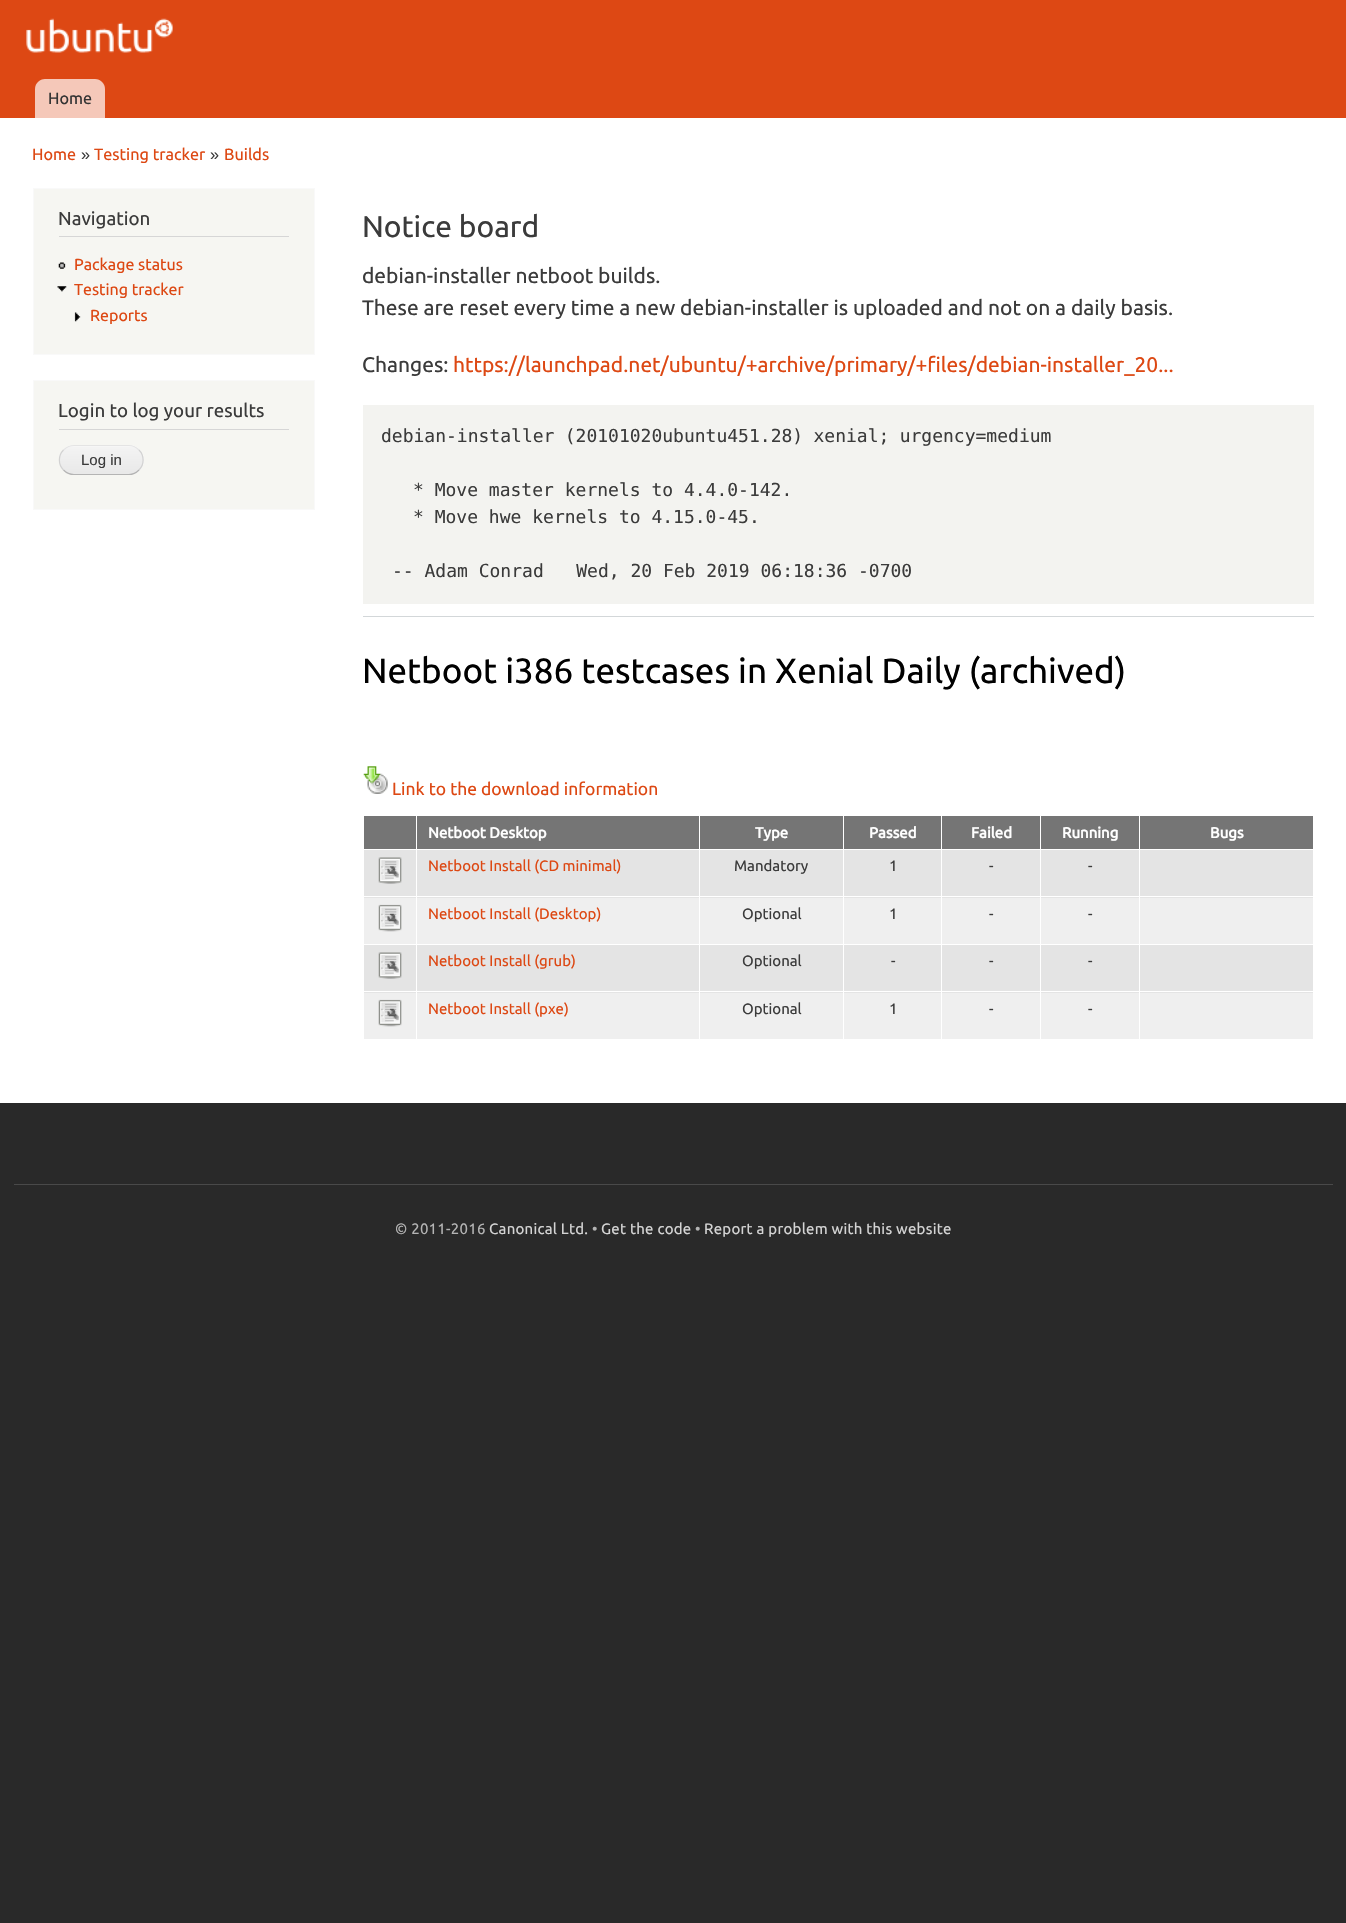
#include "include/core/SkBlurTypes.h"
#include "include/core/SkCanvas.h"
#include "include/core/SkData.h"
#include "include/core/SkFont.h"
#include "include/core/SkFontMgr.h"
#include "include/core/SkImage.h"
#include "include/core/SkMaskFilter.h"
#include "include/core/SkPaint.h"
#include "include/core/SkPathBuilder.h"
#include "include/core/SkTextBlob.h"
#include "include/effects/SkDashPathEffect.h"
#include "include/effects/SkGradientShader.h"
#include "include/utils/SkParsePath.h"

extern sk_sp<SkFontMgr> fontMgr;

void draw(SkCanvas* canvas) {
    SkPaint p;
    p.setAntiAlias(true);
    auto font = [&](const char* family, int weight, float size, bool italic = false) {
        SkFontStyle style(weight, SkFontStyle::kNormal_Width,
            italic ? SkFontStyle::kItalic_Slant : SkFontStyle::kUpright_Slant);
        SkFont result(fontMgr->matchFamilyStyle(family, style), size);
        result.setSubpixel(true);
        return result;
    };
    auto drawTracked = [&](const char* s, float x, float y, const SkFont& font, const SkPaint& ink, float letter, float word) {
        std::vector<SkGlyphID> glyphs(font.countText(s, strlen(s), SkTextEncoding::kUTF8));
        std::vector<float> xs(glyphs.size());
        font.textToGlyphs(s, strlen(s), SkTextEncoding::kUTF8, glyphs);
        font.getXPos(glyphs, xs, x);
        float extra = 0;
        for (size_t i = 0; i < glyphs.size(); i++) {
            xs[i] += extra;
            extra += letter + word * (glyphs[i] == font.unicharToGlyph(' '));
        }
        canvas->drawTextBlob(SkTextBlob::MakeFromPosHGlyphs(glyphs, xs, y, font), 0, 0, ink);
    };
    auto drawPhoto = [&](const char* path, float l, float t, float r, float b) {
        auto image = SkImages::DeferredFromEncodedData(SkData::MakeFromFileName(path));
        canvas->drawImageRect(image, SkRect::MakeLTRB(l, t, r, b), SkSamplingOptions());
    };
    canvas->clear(0xFF292929);
    p.setColor(0xFFFFFFFF);
    canvas->drawRect(SkRect::MakeLTRB(0, 118, 1346, 1103), p);
    p.setColor(0xFFDD4814);
    canvas->drawRect(SkRect::MakeLTRB(0, 0, 1346, 118), p);
    drawPhoto("media/1.png", 26, 18, 173, 53);
    p.setColor(0xFFF5C8B9);
    canvas->drawPath(SkPathBuilder().moveTo(45, 79).lineTo(95, 79).cubicTo(100.5f, 79, 105, 83.5f, 105, 89).lineTo(105, 118).lineTo(35, 118).lineTo(35, 89).cubicTo(35, 83.5f, 39.5f, 79, 45, 79).close().detach(), p);
    auto font1 = font("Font", 400, 16.25f);
    p.setColor(0xFF333333);
    canvas->drawString("Home", 48, 104, font1, p);
    p.setColor(0xFFDD4813);
    canvas->drawString("Home", 32, 160, font1, p);
    auto font2 = font("Liberation Sans", 400, 16.25f);
    p.setColor(0xFF3B3B3B);
    canvas->drawString("»", 81, 160, font2, p);
    p.setColor(0xFFDD4813);
    canvas->drawString("Testing tracker", 94, 160, font1, p);
    p.setColor(0xFF3B3B3B);
    canvas->drawString("»", 210, 160, font2, p);
    p.setColor(0xFFDD4813);
    canvas->drawString("Builds", 224, 160, font1, p);
    p.setColor(0xFFF6F6F2);
    canvas->drawRect(SkRect::MakeLTRB(33.5f, 188.5f, 314.5f, 354.5f), p);
    p.setStyle(SkPaint::kStroke_Style);
    p.setStrokeWidth(1);
    p.setColor(0xFFF9F9F9);
    canvas->drawRect(SkRect::MakeLTRB(33.5f, 188.5f, 314.5f, 354.5f), p);
    p.setStyle(SkPaint::kFill_Style);
    p.setColor(0xFFD6D6D6);
    canvas->drawRect(SkRect::MakeLTRB(59, 236, 289, 237), p);
    auto font3 = font("Font", 400, 18.75f);
    p.setColor(0xFF3B3B3B);
    canvas->drawString("Navigation", 58, 225, font3, p);
    drawPhoto("media/2.png", 58, 262, 66, 269);
    auto font4 = font("Font", 400, 16);
    p.setColor(0xFFDD4813);
    canvas->drawString("Package status", 74, 270, font4, p);
    drawPhoto("media/3.png", 57, 286, 67, 292);
    canvas->drawString("Testing tracker", 74, 295, font4, p);
    drawPhoto("media/4.png", 74, 312, 81, 322);
    canvas->drawString("Reports", 90, 321, font4, p);
    p.setColor(0xFFF6F6F2);
    canvas->drawRect(SkRect::MakeLTRB(33.5f, 380.5f, 314.5f, 509.5f), p);
    p.setStyle(SkPaint::kStroke_Style);
    p.setColor(0xFFF9F9F9);
    canvas->drawRect(SkRect::MakeLTRB(33.5f, 380.5f, 314.5f, 509.5f), p);
    p.setStyle(SkPaint::kFill_Style);
    p.setColor(0xFFD6D6D6);
    canvas->drawRect(SkRect::MakeLTRB(59, 429, 289, 430), p);
    p.setColor(0xFF3B3B3B);
    canvas->drawString("Login to log your results", 58, 417, font3, p);
    p.setColor(0xFFFFFFFF);
    canvas->drawRoundRect(SkRect::MakeLTRB(59, 445, 144, 475), 15, 15, p);
    drawPhoto("media/5.png", 59, 446, 144, 475);
    p.setStyle(SkPaint::kStroke_Style);
    p.setStrokeWidth(1.2f);
    p.setColor(0xFFE4E4E4);
    canvas->drawPath(SkPathBuilder().moveTo(63.5f, 450).cubicTo(66.5f, 447, 70, 445.5f, 74, 445.5f).lineTo(129, 445.5f).cubicTo(132.5f, 445.5f, 136, 447, 139, 450).detach(), p);
    p.setColor(0xFFD2D2D2);
    canvas->drawPath(SkPathBuilder().moveTo(139, 450).cubicTo(144.5f, 455.5f, 144.5f, 464.5f, 139, 470).detach(), p);
    p.setColor(0xFFB4B4B4);
    canvas->drawPath(SkPathBuilder().moveTo(139, 470).cubicTo(136, 473, 132.5f, 474.5f, 129, 474.5f).lineTo(74, 474.5f).cubicTo(70, 474.5f, 66.5f, 473, 63.5f, 470).detach(), p);
    p.setColor(0xFFD2D2D2);
    canvas->drawPath(SkPathBuilder().moveTo(63.5f, 470).cubicTo(58, 464.5f, 58, 455.5f, 63.5f, 450).detach(), p);
    auto font5 = font("Liberation Sans", 400, 15);
    p.setStyle(SkPaint::kFill_Style);
    p.setColor(0xFF3B3B3B);
    canvas->drawString("Log in", 81, 465, font5, p);
    p.setColor(0xFFD3D7D9);
    canvas->drawRect(SkRect::MakeLTRB(363, 616, 1314, 617), p);
    auto font6 = font("Font", 400, 30);
    p.setColor(0xFF3B3B3B);
    canvas->drawString("Notice board", 362, 237, font6, p);
    auto font7 = font("Font", 400, 21);
    {
        const struct { const char* s; float x, y; } items[] = {
            {"debian-installer netboot builds.", 362, 283},
            {"These are reset every time a new debian-installer is uploaded and not on a daily basis.", 362, 315},
            {"Changes:", 362, 372},
        };
        for (auto [s, x, y] : items) {
            canvas->drawString(s, x, y, font7, p);
        }
    }
    p.setColor(0xFFDD4813);
    canvas->drawString("https://launchpad.net/ubuntu/+archive/primary/+files/debian-installer_20...", 453, 372, font7, p);
    p.setColor(0xFFF3F3F0);
    canvas->drawRect(SkRect::MakeLTRB(363, 405, 1314, 604), p);
    auto font8 = font("DejaVu Sans Mono", 400, 18);
    p.setColor(0xFF3B3B3B);
    drawTracked("debian-installer (20101020ubuntu451.28) xenial; urgency=medium", 381, 442, font8, p, 0, -0.5f);
    {
        const struct { const char* s; float x, y; } items[] = {
            {"* Move master kernels to 4.4.0-142.", 413, 496},
            {"* Move hwe kernels to 4.15.0-45.", 413, 523},
            {"-- Adam Conrad   Wed, 20 Feb 2019 06:18:36 -0700", 392, 577},
        };
        for (auto [s, x, y] : items) {
            canvas->drawString(s, x, y, font8, p);
        }
    }
    auto font9 = font("Font", 400, 35);
    p.setColor(0xFF000000);
    canvas->drawString("Netboot i386 testcases in Xenial Daily (archived)", 362, 683, font9, p);
    drawPhoto("media/6.png", 363, 766, 388, 794);
    auto font10 = font("Font", 400, 17.5f);
    p.setColor(0xFFDD4813);
    canvas->drawString("Link to the download information", 392, 795, font10, p);
    p.setColor(0xFF757575);
    canvas->drawRect(SkRect::MakeLTRB(364, 816, 416, 849), p);
    canvas->drawRect(SkRect::MakeLTRB(417, 816, 699, 849), p);
    auto font11 = font("Font", 700, 15);
    p.setColor(0xFFFFFFFF);
    canvas->drawString("Netboot Desktop", 428, 838, font11, p);
    p.setColor(0xFF757575);
    canvas->drawRect(SkRect::MakeLTRB(700, 816, 843, 849), p);
    p.setColor(0xFFFFFFFF);
    canvas->drawString("Type", 755, 838, font11, p);
    p.setColor(0xFF757575);
    canvas->drawRect(SkRect::MakeLTRB(844, 816, 1040, 849), p);
    p.setColor(0xFFFFFFFF);
    canvas->drawString("Passed", 869, 838, font11, p);
    canvas->drawString("Failed", 971, 838, font11, p);
    p.setColor(0xFF757575);
    canvas->drawRect(SkRect::MakeLTRB(1041, 816, 1139, 849), p);
    p.setColor(0xFFFFFFFF);
    canvas->drawString("Running", 1062, 838, font11, p);
    p.setColor(0xFF757575);
    canvas->drawRect(SkRect::MakeLTRB(1140, 816, 1313, 849), p);
    p.setColor(0xFFFFFFFF);
    canvas->drawString("Bugs", 1210, 838, font11, p);
    p.setColor(0xFFE4E4E4);
    canvas->drawRect(SkRect::MakeLTRB(364, 850, 1313, 898), p);
    drawPhoto("media/7.png", 378, 857, 402, 884);
    {
        const struct { float l, t, r, b; SkColor color; } items[] = {
            {1139, 896, 1314, 897, 0xFFFFFFFF},
            {364, 898, 1313, 944, 0xFFEFEFEF},
            {364, 945, 1313, 993, 0xFFE4E4E4},
            {1139, 991, 1314, 992, 0xFFFFFFFF},
            {364, 993, 1313, 1039, 0xFFEFEFEF},
            {1139, 991, 1140, 1040, 0xFFFFFFFF},
            {1040, 991, 1140, 992, 0xFFFFFFFF},
            {1139, 944, 1140, 993, 0xFFFFFFFF},
            {1139, 896, 1140, 945, 0xFFFFFFFF},
            {1040, 896, 1140, 897, 0xFFFFFFFF},
            {1040, 991, 1041, 1040, 0xFFFFFFFF},
            {941, 991, 1041, 992, 0xFFFFFFFF},
            {1040, 944, 1041, 993, 0xFFFFFFFF},
            {1040, 896, 1041, 945, 0xFFFFFFFF},
            {941, 896, 1041, 897, 0xFFFFFFFF},
            {941, 991, 942, 1040, 0xFFFFFFFF},
            {843, 991, 943, 992, 0xFFFFFFFF},
            {941, 944, 942, 993, 0xFFFFFFFF},
            {941, 896, 942, 945, 0xFFFFFFFF},
            {843, 896, 943, 897, 0xFFFFFFFF},
            {843, 991, 844, 1040, 0xFFFFFFFF},
            {699, 991, 844, 992, 0xFFFFFFFF},
            {843, 944, 844, 993, 0xFFFFFFFF},
            {843, 896, 844, 945, 0xFFFFFFFF},
            {699, 896, 844, 897, 0xFFFFFFFF},
            {699, 991, 700, 1040, 0xFFFFFFFF},
            {416, 991, 700, 992, 0xFFFFFFFF},
            {699, 944, 700, 993, 0xFFFFFFFF},
            {699, 896, 700, 945, 0xFFFFFFFF},
            {416, 896, 700, 897, 0xFFFFFFFF},
            {416, 991, 417, 1040, 0xFFFFFFFF},
            {363, 991, 418, 992, 0xFFFFFFFF},
            {416, 944, 417, 993, 0xFFFFFFFF},
            {416, 896, 417, 945, 0xFFFFFFFF},
            {363, 896, 418, 897, 0xFFFFFFFF},
            {416, 849, 417, 898, 0xFFFFFFFF},
        };
        for (auto [l, t, r, b, color] : items) {
            p.setColor(color);
            canvas->drawRect(SkRect::MakeLTRB(l, t, r, b), p);
        }
    }
    auto font12 = font("Font", 400, 15);
    p.setColor(0xFFDD4813);
    canvas->drawString("Netboot Install (CD minimal)", 428, 871, font12, p);
    p.setColor(0xFFFFFFFF);
    canvas->drawRect(SkRect::MakeLTRB(699, 849, 700, 898), p);
    p.setColor(0xFF3B3B3B);
    canvas->drawString("Mandatory", 734, 871, font12, p);
    p.setColor(0xFFFFFFFF);
    canvas->drawRect(SkRect::MakeLTRB(843, 849, 844, 898), p);
    p.setColor(0xFF3B3B3B);
    canvas->drawString("1", 889, 871, font12, p);
    p.setColor(0xFFFFFFFF);
    canvas->drawRect(SkRect::MakeLTRB(941, 815, 942, 898), p);
    p.setColor(0xFF3B3B3B);
    canvas->drawString("-", 989, 871, font12, p);
    p.setColor(0xFFFFFFFF);
    canvas->drawRect(SkRect::MakeLTRB(1040, 849, 1041, 898), p);
    p.setColor(0xFF3B3B3B);
    canvas->drawString("-", 1088, 871, font12, p);
    p.setColor(0xFFFFFFFF);
    canvas->drawRect(SkRect::MakeLTRB(1139, 849, 1140, 898), p);
    drawPhoto("media/8.png", 378, 904, 402, 932);
    p.setColor(0xFFDD4813);
    canvas->drawString("Netboot Install (Desktop)", 428, 919, font12, p);
    p.setColor(0xFF3B3B3B);
    {
        const struct { const char* s; float x, y; } items[] = {
            {"Optional", 742, 919},
            {"1", 889, 919},
            {"-", 989, 919},
            {"-", 1088, 919},
        };
        for (auto [s, x, y] : items) {
            canvas->drawString(s, x, y, font12, p);
        }
    }
    drawPhoto("media/7.png", 378, 952, 402, 979);
    p.setColor(0xFFDD4813);
    canvas->drawString("Netboot Install (grub)", 428, 966, font12, p);
    p.setColor(0xFF3B3B3B);
    {
        const struct { const char* s; float x, y; } items[] = {
            {"Optional", 742, 966},
            {"-", 891, 966},
            {"-", 989, 966},
            {"-", 1088, 966},
        };
        for (auto [s, x, y] : items) {
            canvas->drawString(s, x, y, font12, p);
        }
    }
    drawPhoto("media/8.png", 378, 999, 402, 1027);
    p.setColor(0xFFDD4813);
    canvas->drawString("Netboot Install (pxe)", 428, 1014, font12, p);
    p.setColor(0xFF3B3B3B);
    {
        const struct { const char* s; float x, y; } items[] = {
            {"Optional", 742, 1014},
            {"1", 889, 1014},
            {"-", 989, 1014},
            {"-", 1088, 1014},
        };
        for (auto [s, x, y] : items) {
            canvas->drawString(s, x, y, font12, p);
        }
    }
    p.setColor(0xFF494949);
    canvas->drawRect(SkRect::MakeLTRB(14, 1184, 1333, 1185), p);
    p.setColor(0xFFB4B4B4);
    drawTracked("© 2011-2016", 395, 1234, font12, p, 0.25f, 0);
    p.setColor(0xFFD4D4D4);
    drawTracked("Canonical Ltd.", 489, 1234, font12, p, 0.25f, 0);
    p.setColor(0xFFB4B4B4);
    drawTracked("•", 592, 1234, font12, p, 0.25f, 0);
    p.setColor(0xFFD4D4D4);
    drawTracked("Get the code", 601, 1234, font12, p, 0.25f, 0);
    p.setColor(0xFFB4B4B4);
    drawTracked("•", 695, 1234, font12, p, 0.25f, 0);
    p.setColor(0xFFD4D4D4);
    drawTracked("Report a problem with this website", 704, 1234, font12, p, 0.25f, 0);
}
